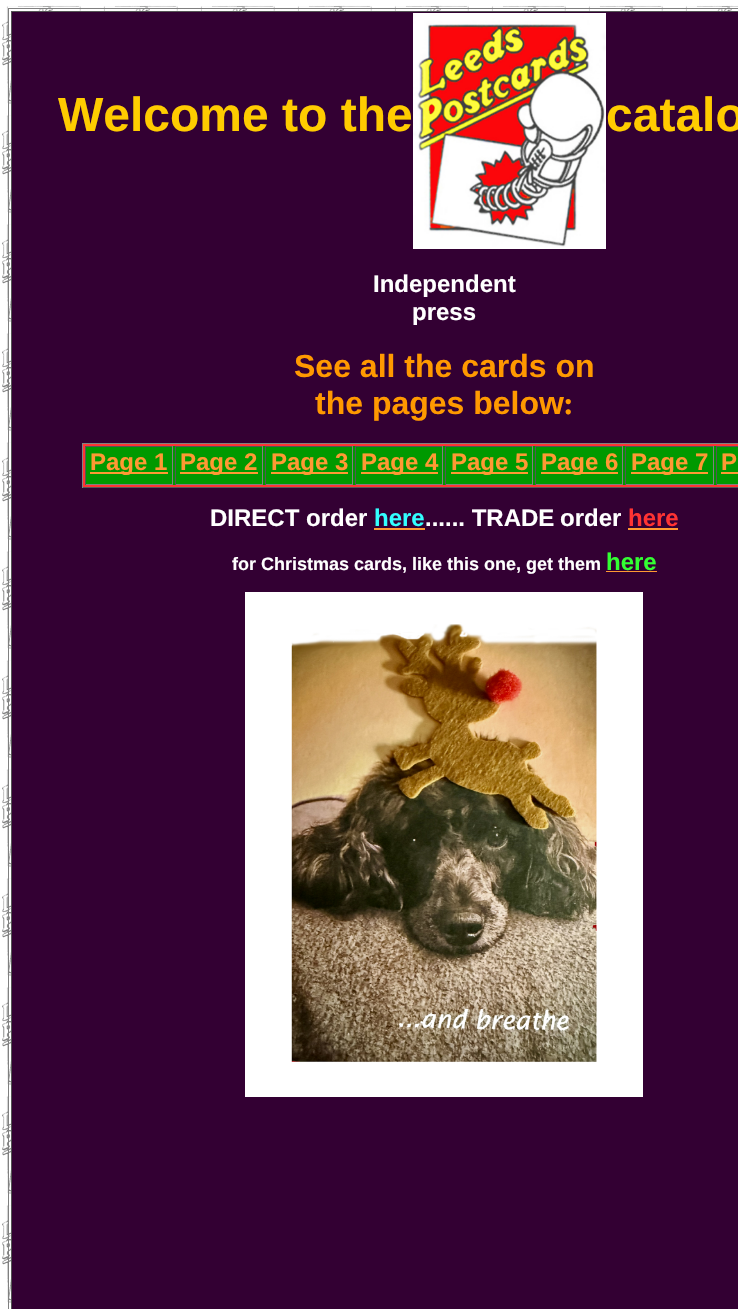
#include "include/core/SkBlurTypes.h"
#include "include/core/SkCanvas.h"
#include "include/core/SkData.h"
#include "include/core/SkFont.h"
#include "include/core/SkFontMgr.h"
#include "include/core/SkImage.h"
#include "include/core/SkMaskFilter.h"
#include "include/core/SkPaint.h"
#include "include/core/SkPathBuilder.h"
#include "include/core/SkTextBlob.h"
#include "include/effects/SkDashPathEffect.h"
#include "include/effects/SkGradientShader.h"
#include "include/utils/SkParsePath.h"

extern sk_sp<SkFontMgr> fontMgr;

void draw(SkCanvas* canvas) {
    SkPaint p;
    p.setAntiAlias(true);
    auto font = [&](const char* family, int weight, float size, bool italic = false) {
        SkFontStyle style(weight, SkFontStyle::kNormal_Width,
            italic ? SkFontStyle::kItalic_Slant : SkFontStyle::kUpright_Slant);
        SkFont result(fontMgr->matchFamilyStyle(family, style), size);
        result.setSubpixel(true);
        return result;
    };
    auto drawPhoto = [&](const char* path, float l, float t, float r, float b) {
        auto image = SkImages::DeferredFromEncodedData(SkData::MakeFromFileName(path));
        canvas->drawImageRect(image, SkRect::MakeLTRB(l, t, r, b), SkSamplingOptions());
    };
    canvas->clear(0xFFFFFFFF);
    drawPhoto("media/1.png", 2, 5, 738, 1308);
    {
        const struct { float l, t, r, b; SkColor color; } items[] = {
            {8, 8, 738, 9, 0xFF808080},
            {8, 8, 9, 1309, 0xFF808080},
            {12, 12, 738, 1309, 0xFF330033},
            {11, 11, 738, 12, 0xFF555555},
            {11, 11, 12, 1309, 0xFF555555},
        };
        for (auto [l, t, r, b, color] : items) {
            p.setColor(color);
            canvas->drawRect(SkRect::MakeLTRB(l, t, r, b), p);
        }
    }
    auto font1 = font("Liberation Sans", 700, 48);
    p.setColor(0xFFFFCC00);
    canvas->drawString("Welcome to the", 58, 131, font1, p);
    drawPhoto("media/2.png", 413, 13, 606, 249);
    canvas->drawString("catalo", 606, 131, font1, p);
    auto font2 = font("Liberation Sans", 700, 24);
    p.setColor(0xFFFFFFFF);
    canvas->drawString("Independent", 373, 292, font2, p);
    canvas->drawString("press", 412, 320, font2, p);
    auto font3 = font("Liberation Sans", 700, 32);
    p.setColor(0xFFFF9900);
    canvas->drawString("See all the cards on", 294, 377, font3, p);
    canvas->drawString("the pages below", 315, 414, font3, p);
    auto font4 = font("Liberation Serif", 700, 32);
    canvas->drawString(":", 563, 414, font4, p);
    {
        const struct { float l, t, r, b; SkColor color; } items[] = {
            {83, 444, 738, 487, 0xFFFF3333},
            {82, 443, 738, 444, 0xFF808080},
            {82, 487, 738, 488, 0xFF555555},
            {82, 443, 83, 488, 0xFF808080},
            {86, 446, 738, 485, 0xFF009900},
            {85, 446, 173, 447, 0xFF555555},
            {172, 446, 173, 485, 0xFF808080},
            {85, 484, 173, 485, 0xFF808080},
            {85, 446, 86, 485, 0xFF555555},
            {90, 472, 168, 474, 0xFFFF9933},
        };
        for (auto [l, t, r, b, color] : items) {
            p.setColor(color);
            canvas->drawRect(SkRect::MakeLTRB(l, t, r, b), p);
        }
    }
    canvas->drawString("Page 1", 90, 470, font2, p);
    {
        const struct { float l, t, r, b; SkColor color; } items[] = {
            {175, 446, 263, 447, 0xFF555555},
            {262, 446, 263, 485, 0xFF808080},
            {175, 484, 263, 485, 0xFF808080},
            {175, 446, 176, 485, 0xFF555555},
            {180, 472, 258, 474, 0xFFFF9933},
        };
        for (auto [l, t, r, b, color] : items) {
            p.setColor(color);
            canvas->drawRect(SkRect::MakeLTRB(l, t, r, b), p);
        }
    }
    canvas->drawString("Page 2", 180, 470, font2, p);
    {
        const struct { float l, t, r, b; SkColor color; } items[] = {
            {265, 446, 353, 447, 0xFF555555},
            {352, 446, 353, 485, 0xFF808080},
            {265, 484, 353, 485, 0xFF808080},
            {265, 446, 266, 485, 0xFF555555},
            {271, 472, 348, 474, 0xFFFF9933},
        };
        for (auto [l, t, r, b, color] : items) {
            p.setColor(color);
            canvas->drawRect(SkRect::MakeLTRB(l, t, r, b), p);
        }
    }
    canvas->drawString("Page 3", 271, 470, font2, p);
    {
        const struct { float l, t, r, b; SkColor color; } items[] = {
            {355, 446, 443, 447, 0xFF555555},
            {442, 446, 443, 485, 0xFF808080},
            {355, 484, 443, 485, 0xFF808080},
            {355, 446, 356, 485, 0xFF555555},
            {361, 472, 438, 474, 0xFFFF9933},
        };
        for (auto [l, t, r, b, color] : items) {
            p.setColor(color);
            canvas->drawRect(SkRect::MakeLTRB(l, t, r, b), p);
        }
    }
    canvas->drawString("Page 4", 361, 470, font2, p);
    {
        const struct { float l, t, r, b; SkColor color; } items[] = {
            {445, 446, 533, 447, 0xFF555555},
            {532, 446, 533, 485, 0xFF808080},
            {445, 484, 533, 485, 0xFF808080},
            {445, 446, 446, 485, 0xFF555555},
            {451, 472, 528, 474, 0xFFFF9933},
        };
        for (auto [l, t, r, b, color] : items) {
            p.setColor(color);
            canvas->drawRect(SkRect::MakeLTRB(l, t, r, b), p);
        }
    }
    canvas->drawString("Page 5", 451, 470, font2, p);
    {
        const struct { float l, t, r, b; SkColor color; } items[] = {
            {535, 446, 623, 447, 0xFF555555},
            {622, 446, 623, 485, 0xFF808080},
            {535, 484, 623, 485, 0xFF808080},
            {535, 446, 536, 485, 0xFF555555},
            {541, 472, 618, 474, 0xFFFF9933},
        };
        for (auto [l, t, r, b, color] : items) {
            p.setColor(color);
            canvas->drawRect(SkRect::MakeLTRB(l, t, r, b), p);
        }
    }
    canvas->drawString("Page 6", 541, 470, font2, p);
    {
        const struct { float l, t, r, b; SkColor color; } items[] = {
            {625, 446, 714, 447, 0xFF555555},
            {713, 446, 714, 485, 0xFF808080},
            {625, 484, 714, 485, 0xFF808080},
            {625, 446, 626, 485, 0xFF555555},
            {631, 472, 708, 474, 0xFFFF9933},
        };
        for (auto [l, t, r, b, color] : items) {
            p.setColor(color);
            canvas->drawRect(SkRect::MakeLTRB(l, t, r, b), p);
        }
    }
    canvas->drawString("Page 7", 631, 470, font2, p);
    {
        const struct { float l, t, r, b; SkColor color; } items[] = {
            {716, 446, 738, 447, 0xFF555555},
            {716, 484, 738, 485, 0xFF808080},
            {716, 446, 717, 485, 0xFF555555},
        };
        for (auto [l, t, r, b, color] : items) {
            p.setColor(color);
            canvas->drawRect(SkRect::MakeLTRB(l, t, r, b), p);
        }
    }
    p.setColor(0xFFFF9933);
    canvas->drawString("P", 721, 470, font2, p);
    canvas->drawRect(SkRect::MakeLTRB(721, 472, 738, 474), p);
    p.setColor(0xFFFFFFFF);
    canvas->drawString("DIRECT order", 210, 526, font2, p);
    p.setColor(0xFF33FFFF);
    canvas->drawString("here", 374, 526, font2, p);
    p.setColor(0xFFFF9933);
    canvas->drawRect(SkRect::MakeLTRB(374, 528, 425, 530), p);
    p.setColor(0xFFFFFFFF);
    canvas->drawString("...... TRADE", 425, 526, font2, p);
    canvas->drawString("order", 560, 526, font2, p);
    p.setColor(0xFFFF3333);
    canvas->drawString("here", 628, 526, font2, p);
    p.setColor(0xFFFF9933);
    canvas->drawRect(SkRect::MakeLTRB(628, 528, 678, 530), p);
    auto font5 = font("Liberation Sans", 700, 18);
    p.setColor(0xFFFFFFFF);
    canvas->drawString("for Christmas cards, like this one, get them", 232, 570, font5, p);
    p.setColor(0xFFFF9933);
    canvas->drawRect(SkRect::MakeLTRB(606, 571, 657, 572), p);
    p.setColor(0xFF33FF33);
    canvas->drawString("here", 606, 570, font2, p);
    drawPhoto("media/3.png", 245, 592, 643, 1097);
}
